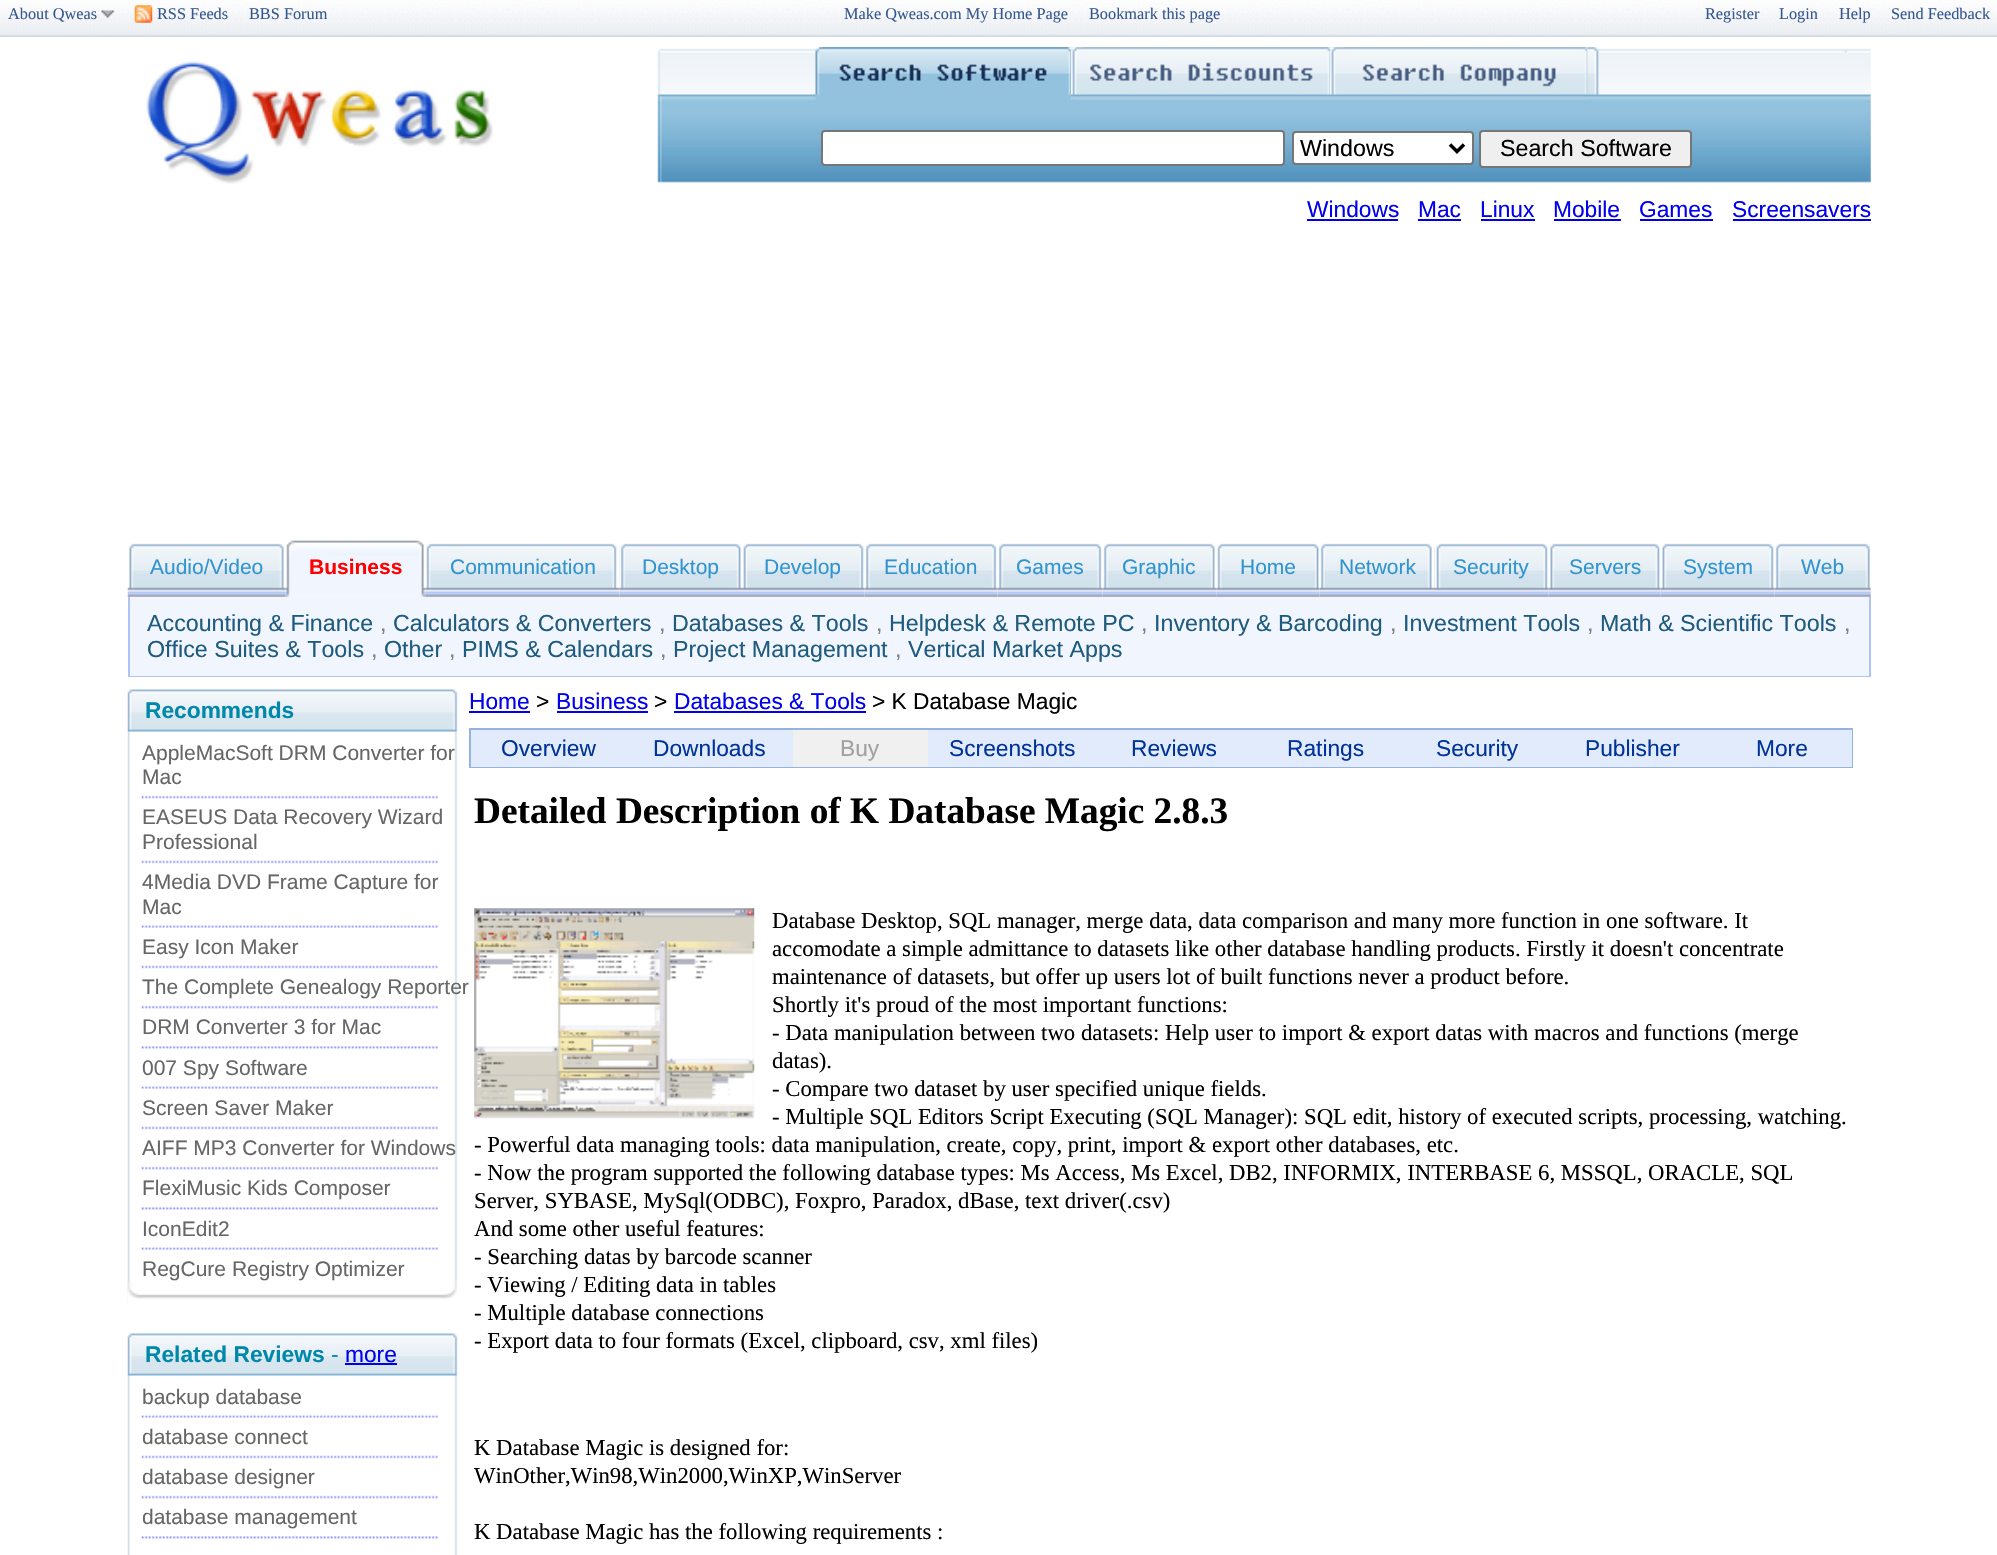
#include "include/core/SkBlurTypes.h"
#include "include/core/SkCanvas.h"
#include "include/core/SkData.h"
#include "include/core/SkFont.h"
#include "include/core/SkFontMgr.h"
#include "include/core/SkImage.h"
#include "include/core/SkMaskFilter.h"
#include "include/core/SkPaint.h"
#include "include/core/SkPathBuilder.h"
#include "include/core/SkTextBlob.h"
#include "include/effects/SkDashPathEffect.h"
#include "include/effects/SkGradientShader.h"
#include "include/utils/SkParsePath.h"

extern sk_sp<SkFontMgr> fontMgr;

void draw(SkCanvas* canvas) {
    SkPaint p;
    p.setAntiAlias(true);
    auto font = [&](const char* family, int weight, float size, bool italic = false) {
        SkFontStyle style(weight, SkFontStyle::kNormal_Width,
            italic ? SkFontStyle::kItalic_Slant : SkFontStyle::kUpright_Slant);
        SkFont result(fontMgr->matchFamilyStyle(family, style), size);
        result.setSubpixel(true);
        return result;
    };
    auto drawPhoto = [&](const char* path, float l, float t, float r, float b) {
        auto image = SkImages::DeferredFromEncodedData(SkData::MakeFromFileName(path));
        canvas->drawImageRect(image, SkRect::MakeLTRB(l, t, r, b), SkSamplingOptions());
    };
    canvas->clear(0xFFFFFFFF);
    drawPhoto("media/1.png", 0, 0, 1997, 35);
    p.setColor(0xFFD4DEE2);
    canvas->drawRect(SkRect::MakeLTRB(0, 35, 1997, 37), p);
    auto font1 = font("Liberation Serif", 400, 16.3f);
    p.setColor(0xFF355790);
    canvas->drawString("About Qweas", 8, 19, font1, p);
    drawPhoto("media/2.png", 101, 10, 115, 18);
    drawPhoto("media/3.png", 134, 5, 153, 23);
    {
        const struct { const char* s; float x, y; } items[] = {
            {"RSS Feeds", 157, 19},
            {"BBS Forum", 249, 19},
            {"Make Qweas.com My Home Page", 844, 19},
            {"Bookmark this page", 1089, 19},
            {"Register", 1705, 19},
            {"Login", 1779, 19},
            {"Help", 1839, 19},
            {"Send Feedback", 1891, 19},
        };
        for (auto [s, x, y] : items) {
            canvas->drawString(s, x, y, font1, p);
        }
    }
    drawPhoto("media/4.png", 146, 61, 493, 184);
    drawPhoto("media/5.png", 657, 47, 1871, 183);
    drawPhoto("media/6.png", 814, 47, 1071, 100);
    drawPhoto("media/7.png", 1071, 47, 1330, 100);
    drawPhoto("media/8.png", 1330, 47, 1588, 100);
    p.setColor(0xFFFFFFFF);
    canvas->drawRoundRect(SkRect::MakeLTRB(822, 131, 1284, 165), 3, 3, p);
    p.setStyle(SkPaint::kStroke_Style);
    p.setStrokeWidth(2);
    p.setColor(0xFF767676);
    canvas->drawRoundRect(SkRect::MakeLTRB(822, 131, 1284, 165), 3, 3, p);
    p.setStyle(SkPaint::kFill_Style);
    p.setColor(0xFFFFFFFF);
    canvas->drawRoundRect(SkRect::MakeLTRB(1293, 132, 1473, 164), 3, 3, p);
    p.setStyle(SkPaint::kStroke_Style);
    p.setColor(0xFF767676);
    canvas->drawRoundRect(SkRect::MakeLTRB(1293, 132, 1473, 164), 3, 3, p);
    p.setStrokeWidth(3.5f);
    p.setColor(0xFF000000);
    canvas->drawPath(SkPathBuilder().moveTo(1450, 144.5f).lineTo(1457, 151.5f).lineTo(1464, 144.5f).detach(), p);
    auto font2 = font("Liberation Sans", 400, 23.25f);
    p.setStyle(SkPaint::kFill_Style);
    canvas->drawString("Windows", 1300, 156, font2, p);
    p.setColor(0xFFEFEFEF);
    canvas->drawRoundRect(SkRect::MakeLTRB(1480, 131, 1691, 167), 3, 3, p);
    p.setStyle(SkPaint::kStroke_Style);
    p.setStrokeWidth(2);
    p.setColor(0xFF767676);
    canvas->drawRoundRect(SkRect::MakeLTRB(1480, 131, 1691, 167), 3, 3, p);
    p.setStyle(SkPaint::kFill_Style);
    p.setColor(0xFF000000);
    canvas->drawString("Search Software", 1500, 156, font2, p);
    auto font3 = font("Liberation Sans", 400, 22.75f);
    p.setColor(0xFF0000EE);
    canvas->drawString("Windows", 1307, 217, font3, p);
    canvas->drawRect(SkRect::MakeLTRB(1307, 219, 1398, 221), p);
    canvas->drawString("Mac", 1418, 217, font3, p);
    canvas->drawRect(SkRect::MakeLTRB(1418, 219, 1461, 221), p);
    canvas->drawString("Linux", 1480, 217, font3, p);
    canvas->drawRect(SkRect::MakeLTRB(1481, 219, 1535, 221), p);
    canvas->drawString("Mobile", 1553, 217, font3, p);
    canvas->drawRect(SkRect::MakeLTRB(1554, 219, 1621, 221), p);
    canvas->drawString("Games", 1639, 217, font3, p);
    canvas->drawRect(SkRect::MakeLTRB(1640, 219, 1713, 221), p);
    canvas->drawString("Screensavers", 1732, 217, font3, p);
    canvas->drawRect(SkRect::MakeLTRB(1733, 219, 1871, 221), p);
    drawPhoto("media/9.png", 127, 543, 286, 597);
    auto font4 = font("Liberation Sans", 400, 21);
    p.setColor(0xFF3094CF);
    canvas->drawString("Audio/Video", 150, 574, font4, p);
    drawPhoto("media/10.png", 285, 540, 426, 597);
    auto font5 = font("Liberation Sans", 700, 21);
    p.setColor(0xFFFF0000);
    canvas->drawString("Business", 309, 574, font5, p);
    drawPhoto("media/11.png", 425, 543, 620, 597);
    p.setColor(0xFF3094CF);
    canvas->drawString("Communication", 450, 574, font4, p);
    drawPhoto("media/12.png", 619, 543, 742, 597);
    canvas->drawString("Desktop", 642, 574, font4, p);
    drawPhoto("media/13.png", 742, 543, 865, 597);
    canvas->drawString("Develop", 764, 574, font4, p);
    drawPhoto("media/14.png", 864, 543, 998, 597);
    canvas->drawString("Education", 884, 574, font4, p);
    drawPhoto("media/15.png", 997, 543, 1103, 597);
    canvas->drawString("Games", 1016, 574, font4, p);
    drawPhoto("media/16.png", 1102, 543, 1217, 597);
    canvas->drawString("Graphic", 1122, 574, font4, p);
    drawPhoto("media/17.png", 1216, 543, 1320, 597);
    canvas->drawString("Home", 1240, 574, font4, p);
    drawPhoto("media/18.png", 1319, 543, 1435, 597);
    canvas->drawString("Network", 1339, 574, font4, p);
    drawPhoto("media/19.png", 1435, 543, 1549, 597);
    canvas->drawString("Security", 1453, 574, font4, p);
    drawPhoto("media/20.png", 1548, 543, 1661, 597);
    canvas->drawString("Servers", 1569, 574, font4, p);
    drawPhoto("media/21.png", 1660, 543, 1775, 597);
    canvas->drawString("System", 1683, 574, font4, p);
    drawPhoto("media/22.png", 1774, 543, 1871, 597);
    canvas->drawString("Web", 1801, 574, font4, p);
    {
        const struct { float l, t, r, b; SkColor color; } items[] = {
            {130, 597, 1869, 676, 0xFFF1F5FE},
            {1869, 597, 1871, 677, 0xFFB0C3F6},
            {128, 676, 1871, 677, 0xFFB0C3F6},
            {128, 597, 130, 677, 0xFFB0C3F6},
        };
        for (auto [l, t, r, b, color] : items) {
            p.setColor(color);
            canvas->drawRect(SkRect::MakeLTRB(l, t, r, b), p);
        }
    }
    p.setColor(0xFF1E5B7E);
    canvas->drawString("Accounting & Finance", 147, 631, font2, p);
    p.setColor(0xFF808080);
    canvas->drawString(",", 380, 631, font2, p);
    p.setColor(0xFF1E5B7E);
    canvas->drawString("Calculators & Converters", 393, 631, font2, p);
    p.setColor(0xFF808080);
    canvas->drawString(",", 659, 631, font2, p);
    p.setColor(0xFF1E5B7E);
    canvas->drawString("Databases & Tools", 672, 631, font2, p);
    p.setColor(0xFF808080);
    canvas->drawString(",", 876, 631, font2, p);
    p.setColor(0xFF1E5B7E);
    canvas->drawString("Helpdesk & Remote PC", 889, 631, font2, p);
    p.setColor(0xFF808080);
    canvas->drawString(",", 1141, 631, font2, p);
    p.setColor(0xFF1E5B7E);
    canvas->drawString("Inventory & Barcoding", 1154, 631, font2, p);
    p.setColor(0xFF808080);
    canvas->drawString(",", 1390, 631, font2, p);
    p.setColor(0xFF1E5B7E);
    canvas->drawString("Investment Tools", 1403, 631, font2, p);
    p.setColor(0xFF808080);
    canvas->drawString(",", 1587, 631, font2, p);
    p.setColor(0xFF1E5B7E);
    canvas->drawString("Math & Scientific Tools", 1600, 631, font2, p);
    p.setColor(0xFF808080);
    canvas->drawString(",", 1844, 631, font2, p);
    p.setColor(0xFF1E5B7E);
    canvas->drawString("Office Suites & Tools", 147, 657, font2, p);
    p.setColor(0xFF808080);
    canvas->drawString(",", 371, 657, font2, p);
    p.setColor(0xFF1E5B7E);
    canvas->drawString("Other", 384, 657, font2, p);
    p.setColor(0xFF808080);
    canvas->drawString(",", 449, 657, font2, p);
    p.setColor(0xFF1E5B7E);
    canvas->drawString("PIMS & Calendars", 462, 657, font2, p);
    p.setColor(0xFF808080);
    canvas->drawString(",", 660, 657, font2, p);
    p.setColor(0xFF1E5B7E);
    canvas->drawString("Project Management", 673, 657, font2, p);
    p.setColor(0xFF808080);
    canvas->drawString(",", 895, 657, font2, p);
    p.setColor(0xFF1E5B7E);
    canvas->drawString("Vertical Market Apps", 908, 657, font2, p);
    drawPhoto("media/23.png", 127, 688, 458, 1306);
    auto font6 = font("Liberation Sans", 700, 22.75f);
    p.setColor(0xFF0088AA);
    canvas->drawString("Recommends", 145, 718, font6, p);
    p.setColor(0xFF666666);
    canvas->drawString("AppleMacSoft DRM Converter for", 142, 760, font4, p);
    canvas->drawString("Mac", 142, 784, font4, p);
    drawPhoto("media/24.png", 141, 795, 438, 799);
    canvas->drawString("EASEUS Data Recovery Wizard", 142, 824, font4, p);
    canvas->drawString("Professional", 142, 849, font4, p);
    drawPhoto("media/25.png", 141, 860, 438, 864);
    canvas->drawString("4Media DVD Frame Capture for", 142, 889, font4, p);
    canvas->drawString("Mac", 142, 914, font4, p);
    drawPhoto("media/26.png", 141, 925, 438, 928);
    canvas->drawString("Easy Icon Maker", 142, 954, font4, p);
    drawPhoto("media/25.png", 141, 965, 438, 969);
    canvas->drawString("The Complete Genealogy Reporter", 142, 994, font4, p);
    drawPhoto("media/24.png", 141, 1005, 438, 1009);
    canvas->drawString("DRM Converter 3 for Mac", 142, 1034, font4, p);
    drawPhoto("media/27.png", 141, 1046, 438, 1049);
    canvas->drawString("007 Spy Software", 142, 1075, font4, p);
    drawPhoto("media/28.png", 141, 1079, 438, 1089);
    canvas->drawString("Screen Saver Maker", 142, 1115, font4, p);
    drawPhoto("media/25.png", 141, 1126, 438, 1130);
    canvas->drawString("AIFF MP3 Converter for Windows", 142, 1155, font4, p);
    drawPhoto("media/24.png", 141, 1166, 438, 1170);
    canvas->drawString("FlexiMusic Kids Composer", 142, 1195, font4, p);
    drawPhoto("media/27.png", 141, 1207, 438, 1210);
    canvas->drawString("IconEdit2", 142, 1236, font4, p);
    drawPhoto("media/26.png", 141, 1247, 438, 1250);
    canvas->drawString("RegCure Registry Optimizer", 142, 1276, font4, p);
    drawPhoto("media/29.png", 127, 1281, 458, 1306);
    drawPhoto("media/30.png", 127, 1332, 458, 1555);
    p.setColor(0xFF0088AA);
    canvas->drawString("Related Reviews", 145, 1362, font6, p);
    canvas->drawString("-", 331, 1362, font3, p);
    p.setColor(0xFF0000EE);
    canvas->drawString("more", 345, 1362, font3, p);
    canvas->drawRect(SkRect::MakeLTRB(345, 1363, 397, 1365), p);
    p.setColor(0xFF666666);
    canvas->drawString("backup database", 142, 1404, font4, p);
    drawPhoto("media/31.png", 141, 1408, 438, 1418);
    canvas->drawString("database connect", 142, 1444, font4, p);
    drawPhoto("media/25.png", 141, 1455, 438, 1459);
    canvas->drawString("database designer", 142, 1484, font4, p);
    drawPhoto("media/24.png", 141, 1495, 438, 1499);
    canvas->drawString("database management", 142, 1524, font4, p);
    drawPhoto("media/27.png", 141, 1536, 438, 1539);
    p.setColor(0xFF0000EE);
    canvas->drawString("Home", 469, 709, font3, p);
    canvas->drawRect(SkRect::MakeLTRB(469, 711, 530, 713), p);
    p.setColor(0xFF000000);
    canvas->drawString(">", 536, 709, font3, p);
    p.setColor(0xFF0000EE);
    canvas->drawString("Business", 556, 709, font3, p);
    canvas->drawRect(SkRect::MakeLTRB(557, 711, 648, 713), p);
    p.setColor(0xFF000000);
    canvas->drawString(">", 654, 709, font3, p);
    p.setColor(0xFF0000EE);
    canvas->drawString("Databases & Tools", 674, 709, font3, p);
    canvas->drawRect(SkRect::MakeLTRB(674, 711, 866, 713), p);
    p.setColor(0xFF000000);
    canvas->drawString("> K Database Magic", 872, 709, font3, p);
    p.setColor(0xFF95B3DE);
    canvas->drawRect(SkRect::MakeLTRB(469, 728, 1853, 768), p);
    p.setColor(0xFFE1EBFB);
    canvas->drawRect(SkRect::MakeLTRB(471, 730, 1852, 767), p);
    p.setColor(0xFF003399);
    canvas->drawString("Overview", 501, 756, font3, p);
    canvas->drawString("Downloads", 653, 756, font3, p);
    p.setColor(0xFFF0F0F0);
    canvas->drawRect(SkRect::MakeLTRB(793, 730, 928, 767), p);
    p.setColor(0xFFA0A0A0);
    canvas->drawString("Buy", 840, 756, font3, p);
    p.setColor(0xFF003399);
    {
        const struct { const char* s; float x, y; } items[] = {
            {"Screenshots", 949, 756},
            {"Reviews", 1131, 756},
            {"Ratings", 1287, 756},
            {"Security", 1436, 756},
            {"Publisher", 1585, 756},
            {"More", 1756, 756},
        };
        for (auto [s, x, y] : items) {
            canvas->drawString(s, x, y, font3, p);
        }
    }
    auto font7 = font("Liberation Serif", 700, 37.3f);
    p.setColor(0xFF000000);
    canvas->drawString("Detailed Description of K Database Magic 2.8.3", 474, 823, font7, p);
    drawPhoto("media/32.png", 474, 908, 755, 1119);
    auto font8 = font("Liberation Serif", 400, 22.75f);
    {
        const struct { const char* s; float x, y; } items[] = {
            {"Database Desktop, SQL manager, merge data, data comparison and many more function in one software. It", 772, 928},
            {"accomodate a simple admittance to datasets like other database handling products. Firstly it doesn't concentrate", 772, 956},
            {"maintenance of datasets, but offer up users lot of built functions never a product before.", 772, 984},
            {"Shortly it's proud of the most important functions:", 772, 1012},
            {"- Data manipulation between two datasets: Help user to import & export datas with macros and functions (merge", 772, 1040},
            {"datas).", 772, 1068},
            {"- Compare two dataset by user specified unique fields.", 772, 1096},
            {"- Multiple SQL Editors Script Executing (SQL Manager): SQL edit, history of executed scripts, processing, watching.", 772, 1124},
            {"- Powerful data managing tools: data manipulation, create, copy, print, import & export other databases, etc.", 474, 1152},
            {"- Now the program supported the following database types: Ms Access, Ms Excel, DB2, INFORMIX, INTERBASE 6, MSSQL, ORACLE, SQL", 474, 1180},
            {"Server, SYBASE, MySql(ODBC), Foxpro, Paradox, dBase, text driver(.csv)", 474, 1208},
            {"And some other useful features:", 474, 1236},
            {"- Searching datas by barcode scanner", 474, 1264},
            {"- Viewing / Editing data in tables", 474, 1292},
            {"- Multiple database connections", 474, 1320},
            {"- Export data to four formats (Excel, clipboard, csv, xml files)", 474, 1348},
            {"K Database Magic is designed for:", 474, 1455},
            {"WinOther,Win98,Win2000,WinXP,WinServer", 474, 1483},
            {"K Database Magic has the following requirements :", 474, 1539},
        };
        for (auto [s, x, y] : items) {
            canvas->drawString(s, x, y, font8, p);
        }
    }
}
